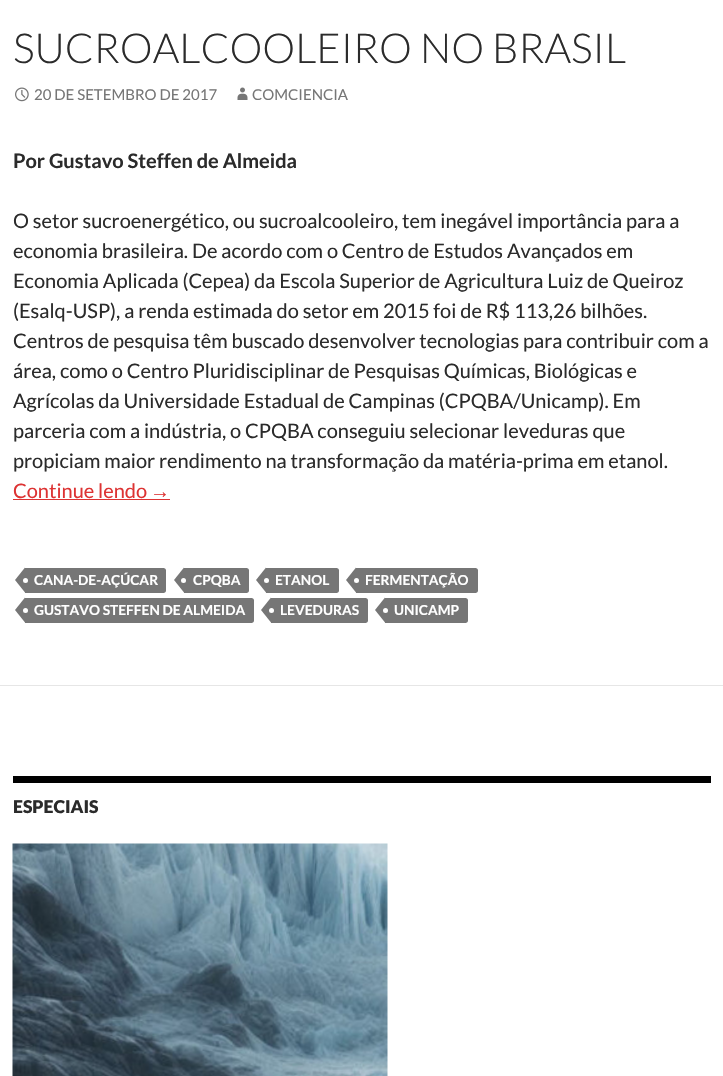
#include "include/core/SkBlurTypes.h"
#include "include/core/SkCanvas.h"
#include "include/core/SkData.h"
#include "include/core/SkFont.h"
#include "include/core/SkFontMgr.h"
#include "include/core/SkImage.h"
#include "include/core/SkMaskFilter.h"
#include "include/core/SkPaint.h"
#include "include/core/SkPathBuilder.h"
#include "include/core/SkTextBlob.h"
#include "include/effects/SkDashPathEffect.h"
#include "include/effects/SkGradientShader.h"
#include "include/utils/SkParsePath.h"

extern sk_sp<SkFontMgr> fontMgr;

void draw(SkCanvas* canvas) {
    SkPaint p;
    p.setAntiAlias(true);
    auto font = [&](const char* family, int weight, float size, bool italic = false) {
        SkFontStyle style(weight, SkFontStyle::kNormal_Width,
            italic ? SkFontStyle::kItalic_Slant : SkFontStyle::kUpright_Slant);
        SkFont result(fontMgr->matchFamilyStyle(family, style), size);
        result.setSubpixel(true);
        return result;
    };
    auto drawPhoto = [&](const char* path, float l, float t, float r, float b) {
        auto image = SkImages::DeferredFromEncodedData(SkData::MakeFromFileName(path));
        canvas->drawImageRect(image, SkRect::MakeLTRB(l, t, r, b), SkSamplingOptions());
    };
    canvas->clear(0xFFFFFFFF);
    auto font1 = font("Lato", 300, 41.25f);
    p.setColor(0xFF2B2B2B);
    canvas->drawString("SUCROALCOOLEIRO NO BRASIL", 13, 63, font1, p);
    drawPhoto("media/1.png", 15, 87, 29, 102);
    auto font2 = font("Lato", 400, 15);
    p.setColor(0xFF767676);
    canvas->drawString("20 DE SETEMBRO DE 2017", 34, 100, font2, p);
    drawPhoto("media/2.png", 237, 87, 248, 100);
    canvas->drawString("COMCIENCIA", 252, 100, font2, p);
    auto font3 = font("Lato", 700, 20);
    p.setColor(0xFF2B2B2B);
    canvas->drawString("Por Gustavo Steffen de Almeida", 13, 168, font3, p);
    auto font4 = font("Lato", 400, 20);
    {
        const struct { const char* s; float x, y; } items[] = {
            {"O setor sucroenergético, ou sucroalcooleiro, tem inegável importância para a", 13, 228},
            {"economia brasileira. De acordo com o Centro de Estudos Avançados em", 13, 258},
            {"Economia Aplicada (Cepea) da Escola Superior de Agricultura Luiz de Queiroz", 13, 288},
            {"(Esalq-USP), a renda estimada do setor em 2015 foi de R$ 113,26 bilhões.", 13, 318},
            {"Centros de pesquisa têm buscado desenvolver tecnologias para contribuir com a", 13, 348},
            {"área, como o Centro Pluridisciplinar de Pesquisas Químicas, Biológicas e", 13, 378},
            {"Agrícolas da Universidade Estadual de Campinas (CPQBA/Unicamp). Em", 13, 408},
            {"parceria com a indústria, o CPQBA conseguiu selecionar leveduras que", 13, 438},
            {"propiciam maior rendimento na transformação da matéria-prima em etanol.", 13, 468},
        };
        for (auto [s, x, y] : items) {
            canvas->drawString(s, x, y, font4, p);
        }
    }
    p.setColor(0xFFDD3333);
    canvas->drawString("Continue lendo", 13, 498, font4, p);
    auto font5 = font("Liberation Sans", 400, 20);
    canvas->drawString("→", 150, 498, font5, p);
    canvas->drawRect(SkRect::MakeLTRB(13, 499, 170, 500), p);
    p.setColor(0xFF767676);
    canvas->drawPath(SkPathBuilder().moveTo(25, 568).lineTo(163.5f, 568).cubicTo(165, 568, 166, 569, 166, 570.5f).lineTo(166, 590.5f).cubicTo(166, 592, 165, 593, 163.5f, 593).lineTo(25, 593).close().detach(), p);
    canvas->drawPath(SkPathBuilder().moveTo(25, 567.5f).lineTo(25, 592.5f).lineTo(15, 580).close().detach(), p);
    p.setColor(0xFFFFFFFF);
    canvas->drawCircle(25.5f, 580.5f, 2.5f, p);
    auto font6 = font("Lato", 700, 13.75f);
    canvas->drawString("CANA-DE-AÇÚCAR", 34, 585, font6, p);
    p.setColor(0xFF767676);
    canvas->drawPath(SkPathBuilder().moveTo(184, 568).lineTo(246.5f, 568).cubicTo(248, 568, 249, 569, 249, 570.5f).lineTo(249, 590.5f).cubicTo(249, 592, 248, 593, 246.5f, 593).lineTo(184, 593).close().detach(), p);
    canvas->drawPath(SkPathBuilder().moveTo(184, 567.5f).lineTo(184, 592.5f).lineTo(174, 580).close().detach(), p);
    p.setColor(0xFFFFFFFF);
    canvas->drawString("CPQBA", 193, 585, font6, p);
    canvas->drawCircle(183.5f, 580.5f, 2.5f, p);
    p.setColor(0xFF767676);
    canvas->drawPath(SkPathBuilder().moveTo(266, 568).lineTo(336.5f, 568).cubicTo(338, 568, 339, 569, 339, 570.5f).lineTo(339, 590.5f).cubicTo(339, 592, 338, 593, 336.5f, 593).lineTo(266, 593).close().detach(), p);
    canvas->drawPath(SkPathBuilder().moveTo(266, 567.5f).lineTo(266, 592.5f).lineTo(256, 580).close().detach(), p);
    p.setColor(0xFFFFFFFF);
    canvas->drawCircle(266.5f, 580.5f, 2.5f, p);
    canvas->drawString("ETANOL", 275, 585, font6, p);
    p.setColor(0xFF767676);
    canvas->drawPath(SkPathBuilder().moveTo(356, 568).lineTo(475.5f, 568).cubicTo(477, 568, 478, 569, 478, 570.5f).lineTo(478, 590.5f).cubicTo(478, 592, 477, 593, 475.5f, 593).lineTo(356, 593).close().detach(), p);
    canvas->drawPath(SkPathBuilder().moveTo(356, 567.5f).lineTo(356, 592.5f).lineTo(346, 580).close().detach(), p);
    p.setColor(0xFFFFFFFF);
    canvas->drawCircle(356.5f, 580.5f, 2.5f, p);
    canvas->drawString("FERMENTAÇÃO", 365, 585, font6, p);
    p.setColor(0xFF767676);
    canvas->drawPath(SkPathBuilder().moveTo(25, 598).lineTo(251.5f, 598).cubicTo(253, 598, 254, 599, 254, 600.5f).lineTo(254, 620.5f).cubicTo(254, 622, 253, 623, 251.5f, 623).lineTo(25, 623).close().detach(), p);
    canvas->drawPath(SkPathBuilder().moveTo(25, 597.5f).lineTo(25, 622.5f).lineTo(15, 610).close().detach(), p);
    p.setColor(0xFFFFFFFF);
    canvas->drawCircle(25.5f, 610.5f, 2.5f, p);
    canvas->drawString("GUSTAVO STEFFEN DE ALMEIDA", 34, 615, font6, p);
    p.setColor(0xFF767676);
    canvas->drawPath(SkPathBuilder().moveTo(271, 598).lineTo(365.5f, 598).cubicTo(367, 598, 368, 599, 368, 600.5f).lineTo(368, 620.5f).cubicTo(368, 622, 367, 623, 365.5f, 623).lineTo(271, 623).close().detach(), p);
    canvas->drawPath(SkPathBuilder().moveTo(271, 597.5f).lineTo(271, 622.5f).lineTo(261, 610).close().detach(), p);
    p.setColor(0xFFFFFFFF);
    canvas->drawCircle(271.5f, 610.5f, 2.5f, p);
    canvas->drawString("LEVEDURAS", 280, 615, font6, p);
    p.setColor(0xFF767676);
    canvas->drawPath(SkPathBuilder().moveTo(385, 598).lineTo(465.5f, 598).cubicTo(467, 598, 468, 599, 468, 600.5f).lineTo(468, 620.5f).cubicTo(468, 622, 467, 623, 465.5f, 623).lineTo(385, 623).close().detach(), p);
    canvas->drawPath(SkPathBuilder().moveTo(385, 597.5f).lineTo(385, 622.5f).lineTo(375, 610).close().detach(), p);
    p.setColor(0xFFFFFFFF);
    canvas->drawCircle(385.5f, 610.5f, 2.5f, p);
    canvas->drawString("UNICAMP", 394, 615, font6, p);
    p.setColor(0xFFE6E6E6);
    canvas->drawRect(SkRect::MakeLTRB(0, 685, 723, 686), p);
    p.setColor(0xFF000000);
    canvas->drawRect(SkRect::MakeLTRB(13, 776, 711, 783), p);
    auto font7 = font("Lato", 900, 17.5f);
    p.setColor(0xFF2B2B2B);
    canvas->drawString("ESPECIAIS", 13, 813, font7, p);
    drawPhoto("media/3.png", 12, 843, 388, 1076);
}
